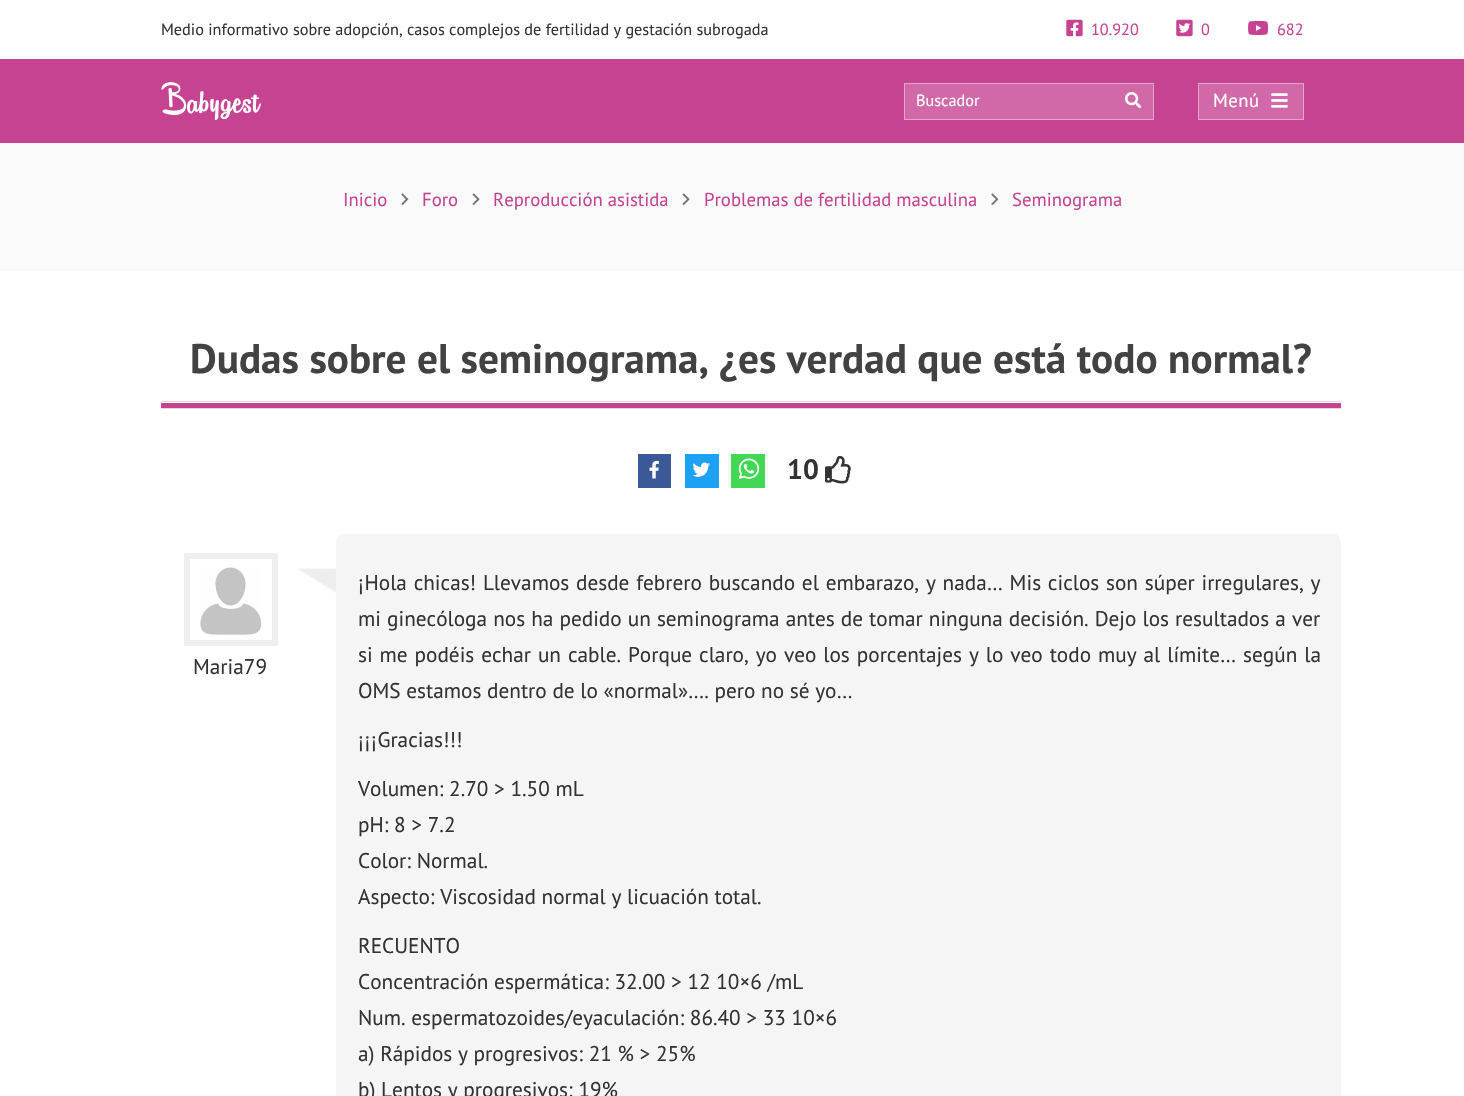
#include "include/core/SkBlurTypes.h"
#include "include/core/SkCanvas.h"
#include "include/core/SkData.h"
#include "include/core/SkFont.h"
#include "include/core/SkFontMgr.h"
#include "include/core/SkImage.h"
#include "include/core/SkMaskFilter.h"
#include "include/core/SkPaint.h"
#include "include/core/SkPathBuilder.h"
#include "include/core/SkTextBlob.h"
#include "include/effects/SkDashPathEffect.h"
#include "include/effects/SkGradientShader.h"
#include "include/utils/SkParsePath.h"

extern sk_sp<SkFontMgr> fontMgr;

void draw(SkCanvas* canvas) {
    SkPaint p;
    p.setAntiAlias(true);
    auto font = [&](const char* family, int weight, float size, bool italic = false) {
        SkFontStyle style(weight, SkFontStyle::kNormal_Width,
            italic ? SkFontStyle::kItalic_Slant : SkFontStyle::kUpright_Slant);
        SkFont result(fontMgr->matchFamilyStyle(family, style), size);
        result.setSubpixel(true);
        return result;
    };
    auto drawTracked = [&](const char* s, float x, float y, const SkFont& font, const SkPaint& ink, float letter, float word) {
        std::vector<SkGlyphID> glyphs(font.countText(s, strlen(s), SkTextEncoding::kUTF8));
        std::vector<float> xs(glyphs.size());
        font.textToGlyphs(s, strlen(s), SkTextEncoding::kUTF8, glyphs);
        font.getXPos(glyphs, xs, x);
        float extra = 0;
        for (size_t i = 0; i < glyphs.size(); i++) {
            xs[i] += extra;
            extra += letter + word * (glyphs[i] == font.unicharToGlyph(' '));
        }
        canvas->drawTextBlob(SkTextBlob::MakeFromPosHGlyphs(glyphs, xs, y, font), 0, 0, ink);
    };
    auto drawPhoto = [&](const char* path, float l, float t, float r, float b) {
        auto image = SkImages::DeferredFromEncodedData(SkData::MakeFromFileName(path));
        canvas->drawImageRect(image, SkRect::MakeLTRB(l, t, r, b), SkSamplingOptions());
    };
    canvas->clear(0xFFFFFFFF);
    auto font1 = font("PT Sans", 400, 16.25f);
    p.setColor(0xFF333333);
    canvas->drawString("Medio informativo sobre adopción, casos complejos de fertilidad y gestación subrogada", 161, 35, font1, p);
    drawPhoto("media/1.png", 1066, 19, 1083, 37);
    p.setColor(0xFFC64392);
    canvas->drawString("10.920", 1091, 35, font1, p);
    drawPhoto("media/2.png", 1176, 19, 1193, 37);
    canvas->drawString("0", 1201, 35, font1, p);
    drawPhoto("media/3.png", 1248, 20, 1269, 35);
    canvas->drawString("682", 1277, 35, font1, p);
    canvas->drawRect(SkRect::MakeLTRB(0, 59, 1464, 143), p);
    drawPhoto("media/4.png", 161, 82, 261, 120);
    p.setColor(0xFFD169A8);
    canvas->drawRect(SkRect::MakeLTRB(905, 84, 1153, 119), p);
    p.setStyle(SkPaint::kStroke_Style);
    p.setStrokeWidth(1);
    p.setColor(0xFFE3A5CB);
    canvas->drawRect(SkRect::MakeLTRB(904.5f, 83.5f, 1153.5f, 119.5f), p);
    p.setStyle(SkPaint::kFill_Style);
    p.setColor(0xFFFFFFFF);
    canvas->drawString("Buscador", 916, 106, font1, p);
    drawPhoto("media/5.png", 1125, 92, 1142, 109);
    p.setColor(0xFFD169A8);
    canvas->drawRect(SkRect::MakeLTRB(1199, 84, 1303, 119), p);
    drawPhoto("media/6.png", 1271, 93, 1288, 108);
    p.setStyle(SkPaint::kStroke_Style);
    p.setColor(0xFFE3A5CB);
    canvas->drawRect(SkRect::MakeLTRB(1198.5f, 83.5f, 1303.5f, 119.5f), p);
    auto font2 = font("PT Sans", 400, 18.75f);
    p.setStyle(SkPaint::kFill_Style);
    p.setColor(0xFFFFFFFF);
    drawTracked("Menú", 1213, 107, font2, p, 0.5f, 0);
    p.setColor(0xFFFAFAFA);
    canvas->drawRect(SkRect::MakeLTRB(0, 143, 1464, 271), p);
    p.setColor(0xFFC64392);
    canvas->drawString("Inicio", 343, 206, font2, p);
    drawPhoto("media/7.png", 401, 193, 409, 205);
    canvas->drawString("Foro", 422, 206, font2, p);
    drawPhoto("media/8.png", 472, 193, 480, 205);
    canvas->drawString("Reproducción asistida", 493, 206, font2, p);
    drawPhoto("media/8.png", 682, 193, 690, 205);
    canvas->drawString("Problemas de fertilidad masculina", 704, 206, font2, p);
    drawPhoto("media/7.png", 991, 193, 999, 205);
    canvas->drawString("Seminograma", 1012, 206, font2, p);
    p.setColor(0xFFDDDDDD);
    canvas->drawRect(SkRect::MakeLTRB(161, 408, 1341, 409), p);
    p.setColor(0xFFC64392);
    canvas->drawRect(SkRect::MakeLTRB(161, 403, 1341, 408), p);
    auto font3 = font("PT Sans", 700, 41.25f);
    p.setColor(0xFF424242);
    canvas->drawString("Dudas sobre el seminograma, ¿es verdad que está todo normal?", 190, 373, font3, p);
    p.setColor(0xFFDDDDDD);
    canvas->drawRect(SkRect::MakeLTRB(161, 401, 1341, 402), p);
    p.setColor(0xFF3B5998);
    canvas->drawRect(SkRect::MakeLTRB(638, 454, 671, 488), p);
    drawPhoto("media/9.png", 649, 460, 659, 479);
    p.setColor(0xFF1DA1F2);
    canvas->drawRect(SkRect::MakeLTRB(685, 454, 719, 488), p);
    drawPhoto("media/10.png", 692, 462, 710, 477);
    p.setColor(0xFF43D854);
    canvas->drawRect(SkRect::MakeLTRB(731, 454, 765, 488), p);
    drawPhoto("media/11.png", 738, 458, 760, 479);
    auto font4 = font("PT Sans", 700, 28);
    p.setColor(0xFF333333);
    canvas->drawString("10", 787, 479, font4, p);
    drawPhoto("media/12.png", 825, 455, 851, 484);
    drawPhoto("media/13.png", 297, 568, 336, 593);
    p.setStyle(SkPaint::kStroke_Style);
    p.setStrokeWidth(6);
    p.setColor(0xFFEFEFEF);
    canvas->drawRect(SkRect::MakeLTRB(187, 556, 275, 643), p);
    drawPhoto("media/14.png", 200, 567, 262, 635);
    auto font5 = font("PT Sans", 400, 21.25f);
    p.setStyle(SkPaint::kFill_Style);
    p.setColor(0xFF333333);
    canvas->drawString("Maria79", 193, 674, font5, p);
    p.setColor(0xFFF5F5F5);
    canvas->drawRoundRect(SkRect::MakeLTRB(336, 534, 1341, 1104), 8, 8, p);
    p.setColor(0xFF333333);
    drawTracked("¡Hola chicas! Llevamos desde febrero buscando el embarazo, y nada… Mis ciclos son súper irregulares, y", 358, 590, font5, p, 0, 1.1f);
    drawTracked("mi ginecóloga nos ha pedido un seminograma antes de tomar ninguna decisión. Dejo los resultados a ver", 358, 626, font5, p, 0, 0.4f);
    drawTracked("si me podéis echar un cable. Porque claro, yo veo los porcentajes y lo veo todo muy al límite… según la", 358, 662, font5, p, 0, 1.25f);
    {
        const struct { const char* s; float x, y; } items[] = {
            {"OMS estamos dentro de lo «normal»…. pero no sé yo…", 358, 698},
            {"¡¡¡Gracias!!!", 358, 747},
            {"Volumen: 2.70 > 1.50 mL", 358, 796},
            {"pH: 8 > 7.2", 358, 832},
            {"Color: Normal.", 358, 868},
            {"Aspecto: Viscosidad normal y licuación total.", 358, 904},
            {"RECUENTO", 358, 953},
            {"Concentración espermática: 32.00 > 12 10×6 /mL", 358, 989},
            {"Num. espermatozoides/eyaculación: 86.40 > 33 10×6", 358, 1025},
            {"a) Rápidos y progresivos: 21 % > 25%", 358, 1061},
            {"b) Lentos y progresivos: 19%", 358, 1097},
        };
        for (auto [s, x, y] : items) {
            canvas->drawString(s, x, y, font5, p);
        }
    }
}
